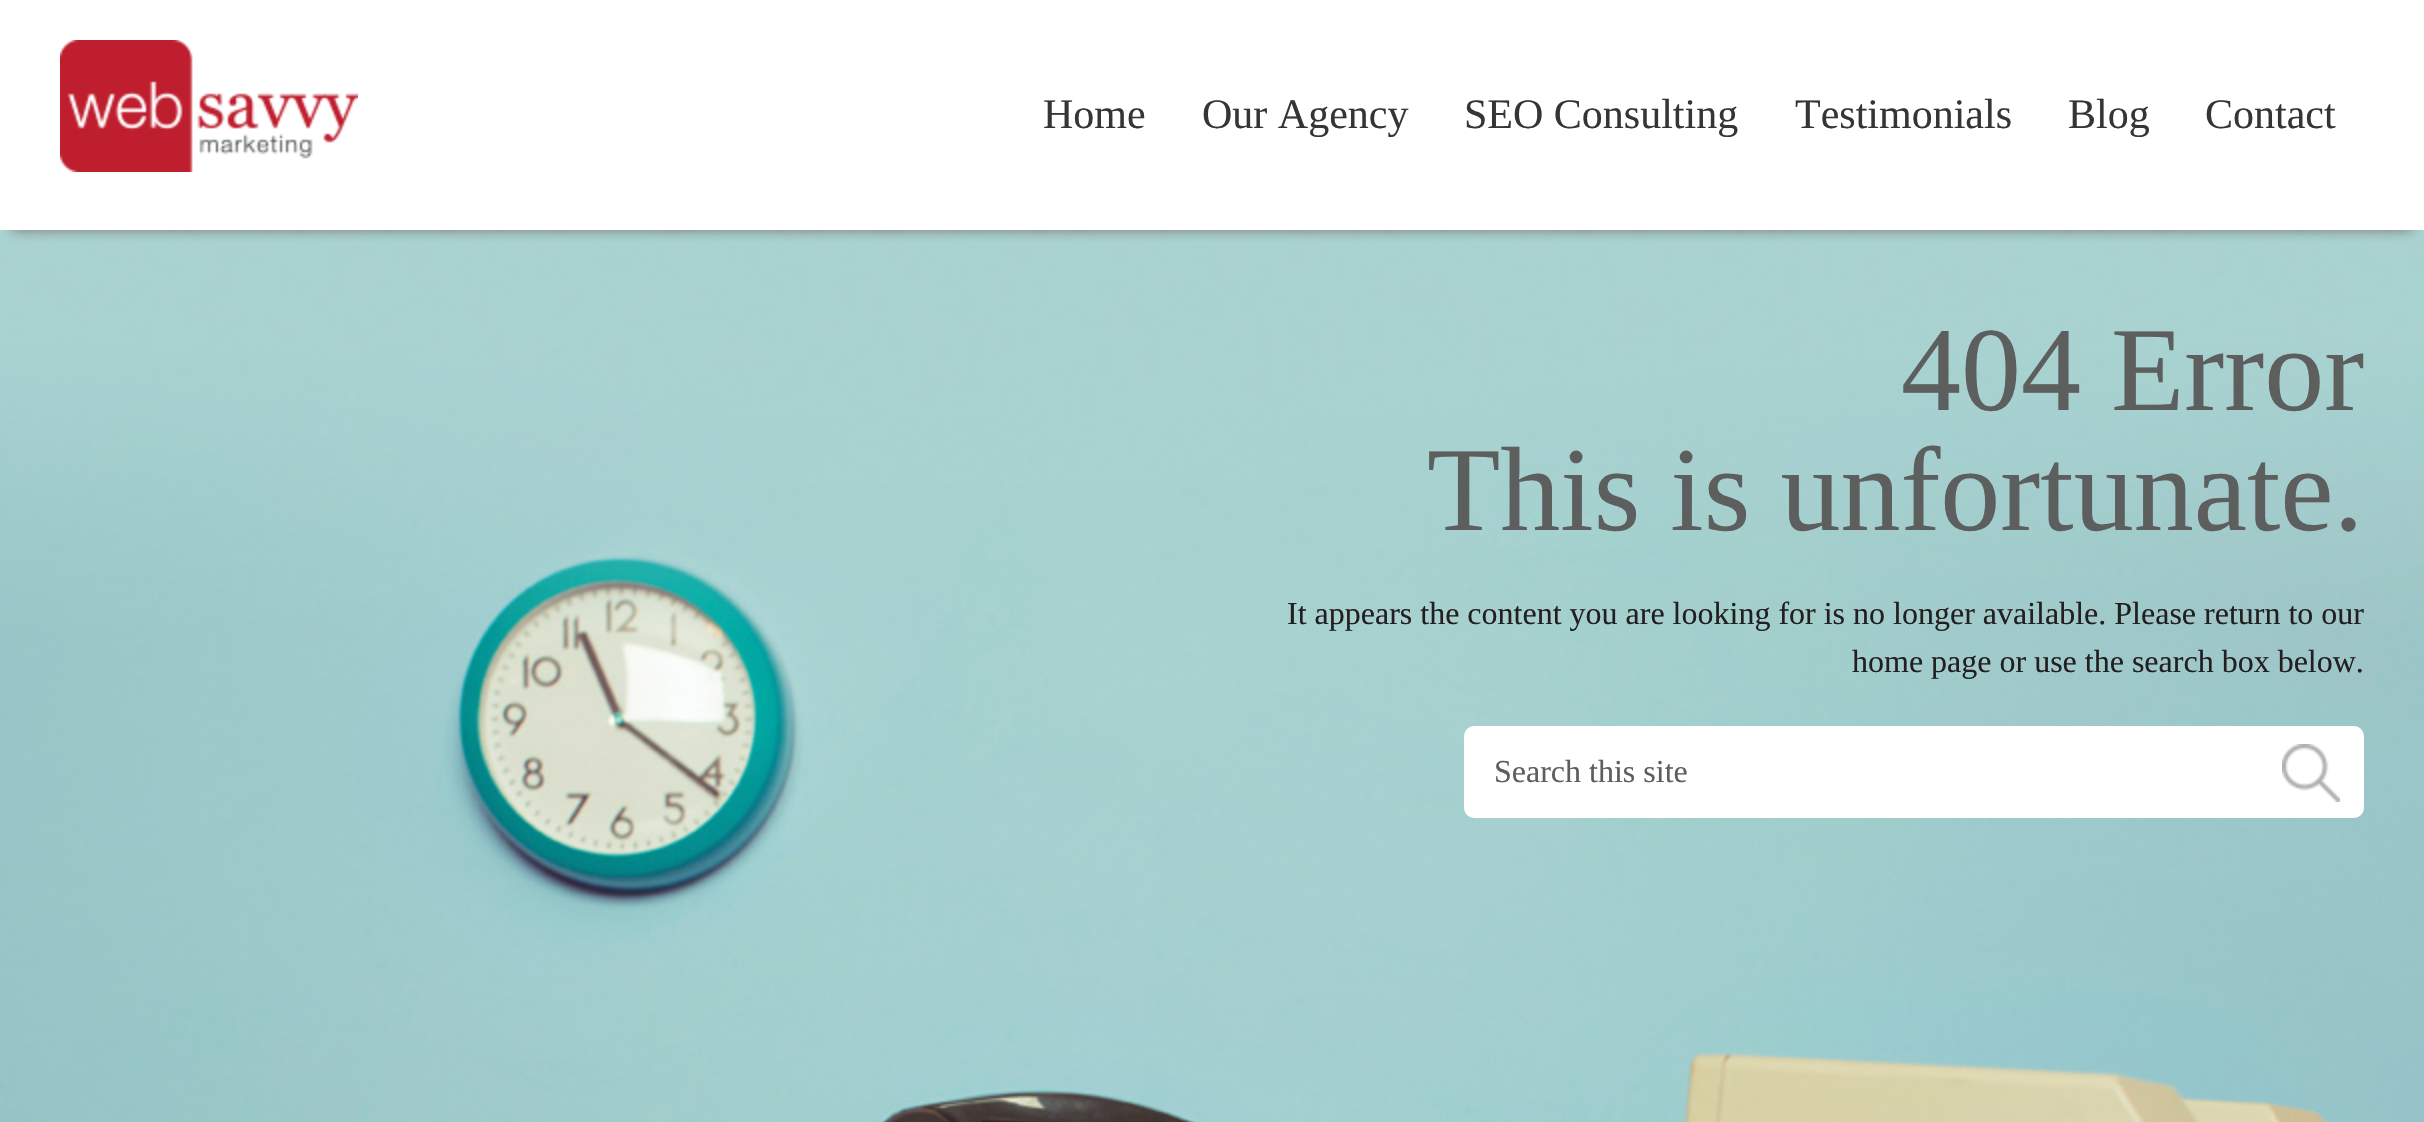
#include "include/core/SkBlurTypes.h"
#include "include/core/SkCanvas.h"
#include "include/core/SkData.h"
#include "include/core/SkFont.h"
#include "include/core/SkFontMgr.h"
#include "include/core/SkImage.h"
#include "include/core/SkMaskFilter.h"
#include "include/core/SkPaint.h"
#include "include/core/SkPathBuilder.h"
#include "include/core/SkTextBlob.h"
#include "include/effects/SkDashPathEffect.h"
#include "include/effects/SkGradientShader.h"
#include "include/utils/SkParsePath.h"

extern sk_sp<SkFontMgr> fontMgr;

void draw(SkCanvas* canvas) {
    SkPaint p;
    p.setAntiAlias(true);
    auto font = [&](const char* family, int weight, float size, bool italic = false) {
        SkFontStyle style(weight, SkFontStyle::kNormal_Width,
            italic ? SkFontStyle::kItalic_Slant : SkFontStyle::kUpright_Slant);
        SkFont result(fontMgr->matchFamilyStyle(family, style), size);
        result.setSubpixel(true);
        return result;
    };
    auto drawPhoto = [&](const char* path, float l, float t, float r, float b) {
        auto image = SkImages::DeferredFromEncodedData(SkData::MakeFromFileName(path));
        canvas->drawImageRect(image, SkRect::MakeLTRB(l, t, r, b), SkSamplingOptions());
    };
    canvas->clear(0xFFFFFFFF);
    drawPhoto("media/2.png", 0, 230, 2424, 1122);
    canvas->save();
    canvas->clipRect(SkRect::MakeLTRB(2, 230, 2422, 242));
    p.setColor(0xFF777777);
    p.setMaskFilter(SkMaskFilter::MakeBlur(kNormal_SkBlurStyle, 6));
    canvas->drawRect(SkRect::MakeLTRB(12, 24, 2412, 230), p);
    p.setMaskFilter(nullptr);
    canvas->restore();
    drawPhoto("media/1.png", 60, 40, 358, 172);
    auto font1 = font("Liberation Serif", 400, 42);
    p.setColor(0xFF363436);
    {
        const struct { const char* s; float x, y; } items[] = {
            {"Home", 1043, 128},
            {"Our Agency", 1202, 128},
            {"SEO Consulting", 1464, 128},
            {"Testimonials", 1795, 128},
            {"Blog", 2068, 128},
            {"Contact", 2205, 128},
        };
        for (auto [s, x, y] : items) {
            canvas->drawString(s, x, y, font1, p);
        }
    }
    auto font2 = font("Liberation Serif", 400, 120);
    p.setColor(0xFF5D5E5E);
    canvas->drawString("404 Error", 1901, 410, font2, p);
    canvas->drawString("This is unfortunate.", 1427, 530, font2, p);
    auto font3 = font("Liberation Serif", 400, 32);
    p.setColor(0xFF231F20);
    canvas->drawString("It appears the content you are looking for is no longer available. Please return to our", 1287, 624, font3, p);
    canvas->drawString("home page or use the search box below.", 1852, 672, font3, p);
    p.setColor(0xFFFFFFFF);
    canvas->drawRoundRect(SkRect::MakeLTRB(1464, 726, 2364, 818), 10, 10, p);
    p.setColor(0xFF5D5E5E);
    canvas->drawString("Search this site", 1494, 782, font3, p);
    drawPhoto("media/3.png", 2282, 744, 2340, 802);
}
